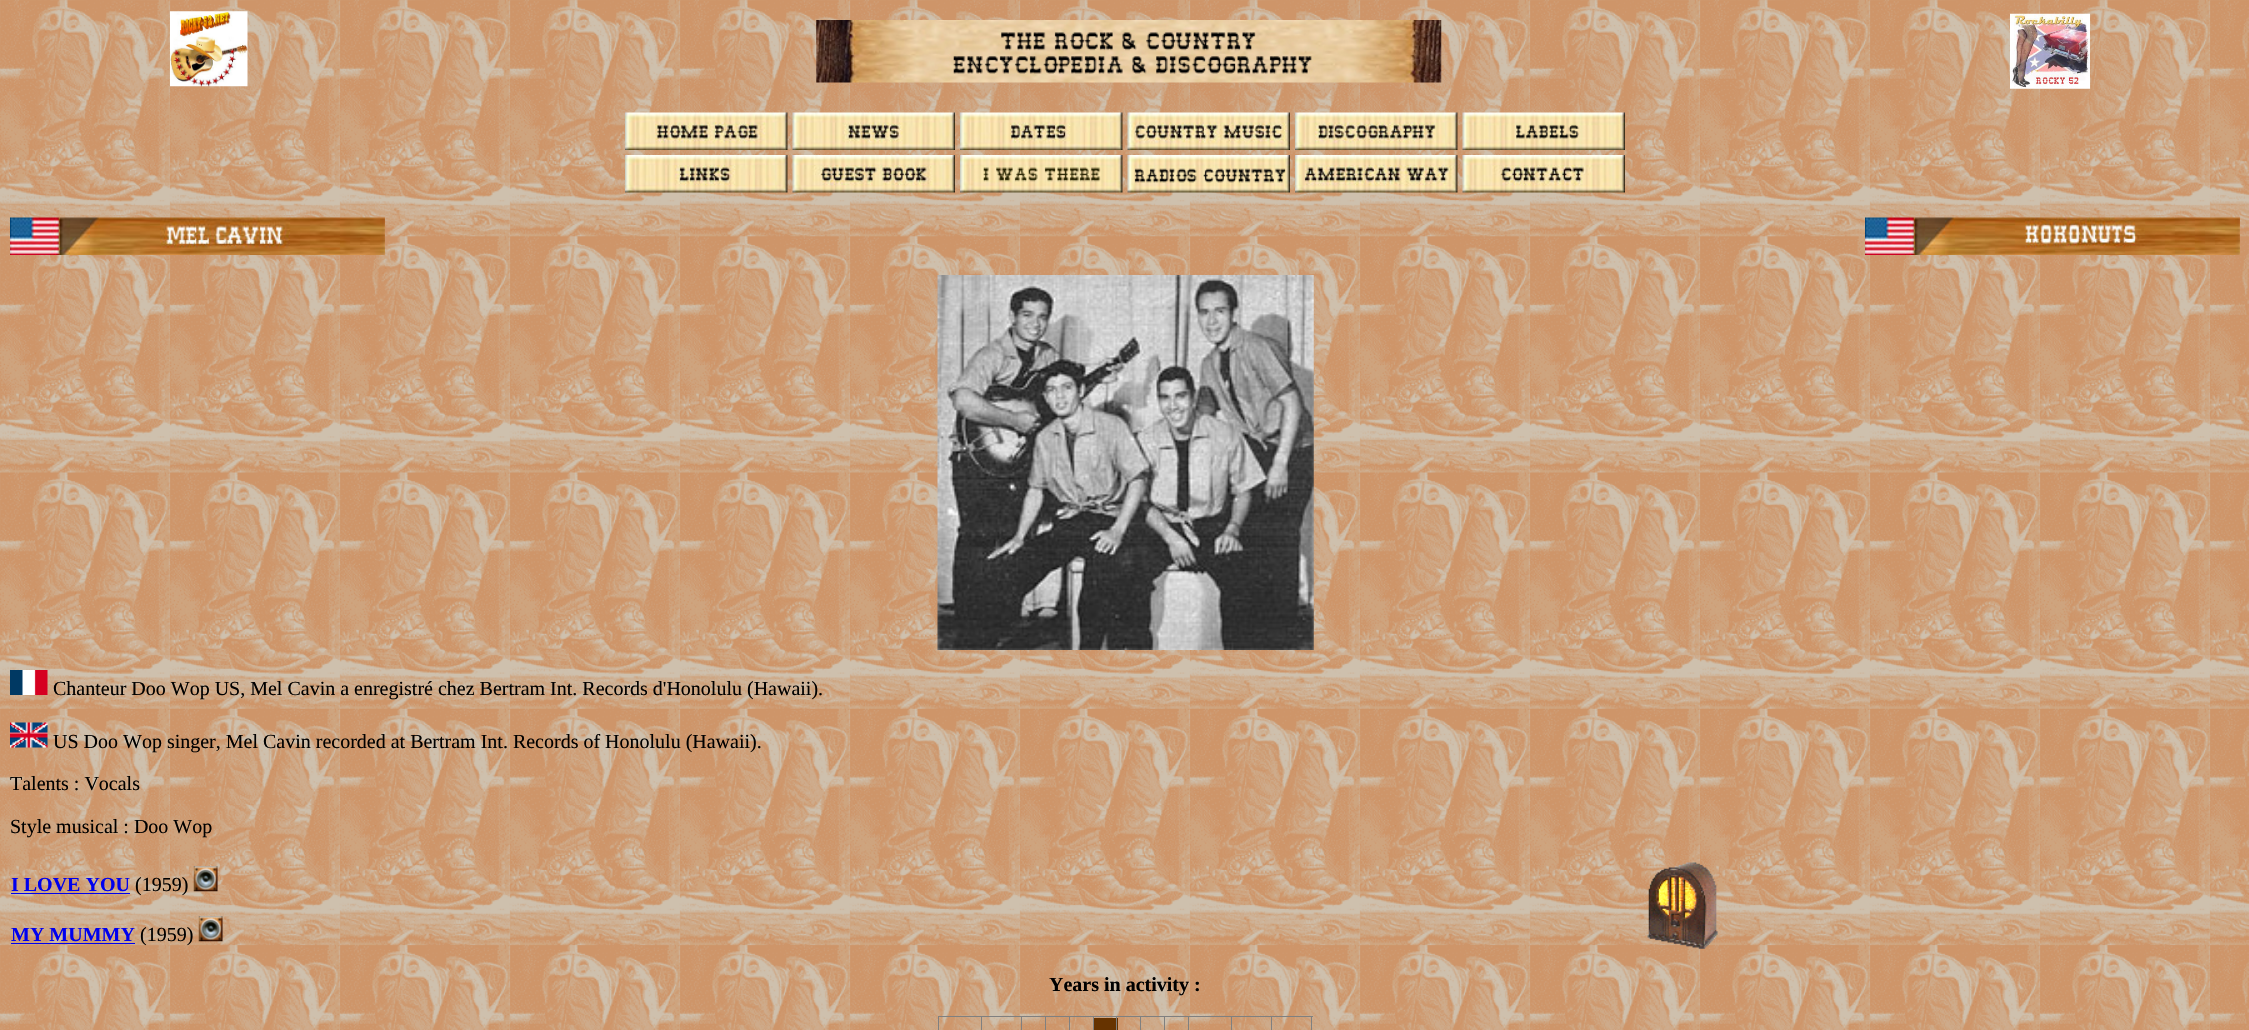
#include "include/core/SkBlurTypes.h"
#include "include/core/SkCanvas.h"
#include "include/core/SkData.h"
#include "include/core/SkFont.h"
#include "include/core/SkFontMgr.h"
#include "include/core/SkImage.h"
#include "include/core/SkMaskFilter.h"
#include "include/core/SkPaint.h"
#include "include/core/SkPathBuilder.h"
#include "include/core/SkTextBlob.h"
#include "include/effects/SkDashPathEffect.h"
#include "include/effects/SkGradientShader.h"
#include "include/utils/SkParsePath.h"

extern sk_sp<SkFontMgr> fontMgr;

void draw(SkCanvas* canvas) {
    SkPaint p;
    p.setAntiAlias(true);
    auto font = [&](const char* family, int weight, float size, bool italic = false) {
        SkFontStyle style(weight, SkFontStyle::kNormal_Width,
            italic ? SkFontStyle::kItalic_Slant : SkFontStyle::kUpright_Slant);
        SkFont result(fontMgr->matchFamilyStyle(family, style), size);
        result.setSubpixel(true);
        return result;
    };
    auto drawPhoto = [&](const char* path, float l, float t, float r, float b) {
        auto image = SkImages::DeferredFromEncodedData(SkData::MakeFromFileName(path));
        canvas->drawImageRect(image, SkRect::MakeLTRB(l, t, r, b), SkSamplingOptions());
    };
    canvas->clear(0xFFFFFFFF);
    drawPhoto("media/1.png", 0, 0, 2249, 1030);
    drawPhoto("media/2.png", 170, 11, 248, 87);
    drawPhoto("media/3.png", 816, 20, 1442, 83);
    drawPhoto("media/4.png", 2010, 13, 2090, 89);
    drawPhoto("media/5.png", 625, 112, 788, 150);
    drawPhoto("media/6.png", 792, 112, 955, 150);
    drawPhoto("media/7.png", 960, 112, 1123, 150);
    drawPhoto("media/8.png", 1127, 112, 1290, 150);
    drawPhoto("media/9.png", 1295, 112, 1458, 150);
    drawPhoto("media/10.png", 1462, 112, 1625, 150);
    drawPhoto("media/11.png", 625, 155, 788, 193);
    drawPhoto("media/12.png", 792, 155, 955, 193);
    drawPhoto("media/13.png", 960, 155, 1123, 193);
    drawPhoto("media/14.png", 1127, 155, 1290, 193);
    drawPhoto("media/15.png", 1295, 155, 1458, 193);
    drawPhoto("media/16.png", 1462, 155, 1625, 193);
    drawPhoto("media/17.png", 10, 217, 385, 255);
    drawPhoto("media/18.png", 1865, 217, 2240, 255);
    drawPhoto("media/19.png", 937, 275, 1314, 650);
    drawPhoto("media/20.png", 10, 670, 48, 695);
    auto font1 = font("Liberation Serif", 400, 20);
    p.setColor(0xFF000000);
    canvas->drawString("Chanteur Doo Wop US, Mel Cavin a enregistré chez Bertram Int. Records d'Honolulu (Hawaii).", 53, 695, font1, p);
    drawPhoto("media/21.png", 10, 722, 48, 748);
    {
        const struct { const char* s; float x, y; } items[] = {
            {"US Doo Wop singer, Mel Cavin recorded at Bertram Int. Records of Honolulu (Hawaii).", 53, 748},
            {"Talents : Vocals", 10, 790},
            {"Style musical : Doo Wop", 10, 833},
        };
        for (auto [s, x, y] : items) {
            canvas->drawString(s, x, y, font1, p);
        }
    }
    auto font2 = font("Liberation Serif", 700, 20);
    p.setColor(0xFF0000EE);
    canvas->drawString("I LOVE YOU", 11, 891, font2, p);
    canvas->drawRect(SkRect::MakeLTRB(11, 893, 130, 894), p);
    p.setColor(0xFF000000);
    canvas->drawString("(1959)", 135, 891, font1, p);
    drawPhoto("media/22.png", 193, 866, 218, 892);
    p.setColor(0xFF0000EE);
    canvas->drawString("MY MUMMY", 11, 941, font2, p);
    canvas->drawRect(SkRect::MakeLTRB(11, 943, 135, 944), p);
    p.setColor(0xFF000000);
    canvas->drawString("(1959)", 140, 941, font1, p);
    drawPhoto("media/23.png", 198, 916, 223, 942);
    drawPhoto("media/24.png", 1647, 862, 1718, 949);
    canvas->drawString("Years in activity :", 1049, 991, font2, p);
    {
        const struct { float l, t, r, b; SkColor color; } items[] = {
            {938, 1016, 1313, 1017, 0xFF808080},
            {1311, 1016, 1312, 1030, 0xFF808080},
            {938, 1016, 939, 1030, 0xFF808080},
            {981, 1016, 982, 1030, 0xFF808080},
            {1021, 1016, 1022, 1030, 0xFF808080},
            {1045, 1016, 1046, 1030, 0xFF808080},
            {1069, 1016, 1070, 1030, 0xFF808080},
            {1094, 1018, 1118, 1030, 0xFF663300},
            {1093, 1016, 1094, 1030, 0xFF808080},
            {1116, 1016, 1117, 1030, 0xFF808080},
            {1140, 1016, 1141, 1030, 0xFF808080},
            {1164, 1016, 1165, 1030, 0xFF808080},
            {1188, 1016, 1189, 1030, 0xFF808080},
            {1231, 1016, 1232, 1030, 0xFF808080},
            {1271, 1016, 1272, 1030, 0xFF808080},
        };
        for (auto [l, t, r, b, color] : items) {
            p.setColor(color);
            canvas->drawRect(SkRect::MakeLTRB(l, t, r, b), p);
        }
    }
}
